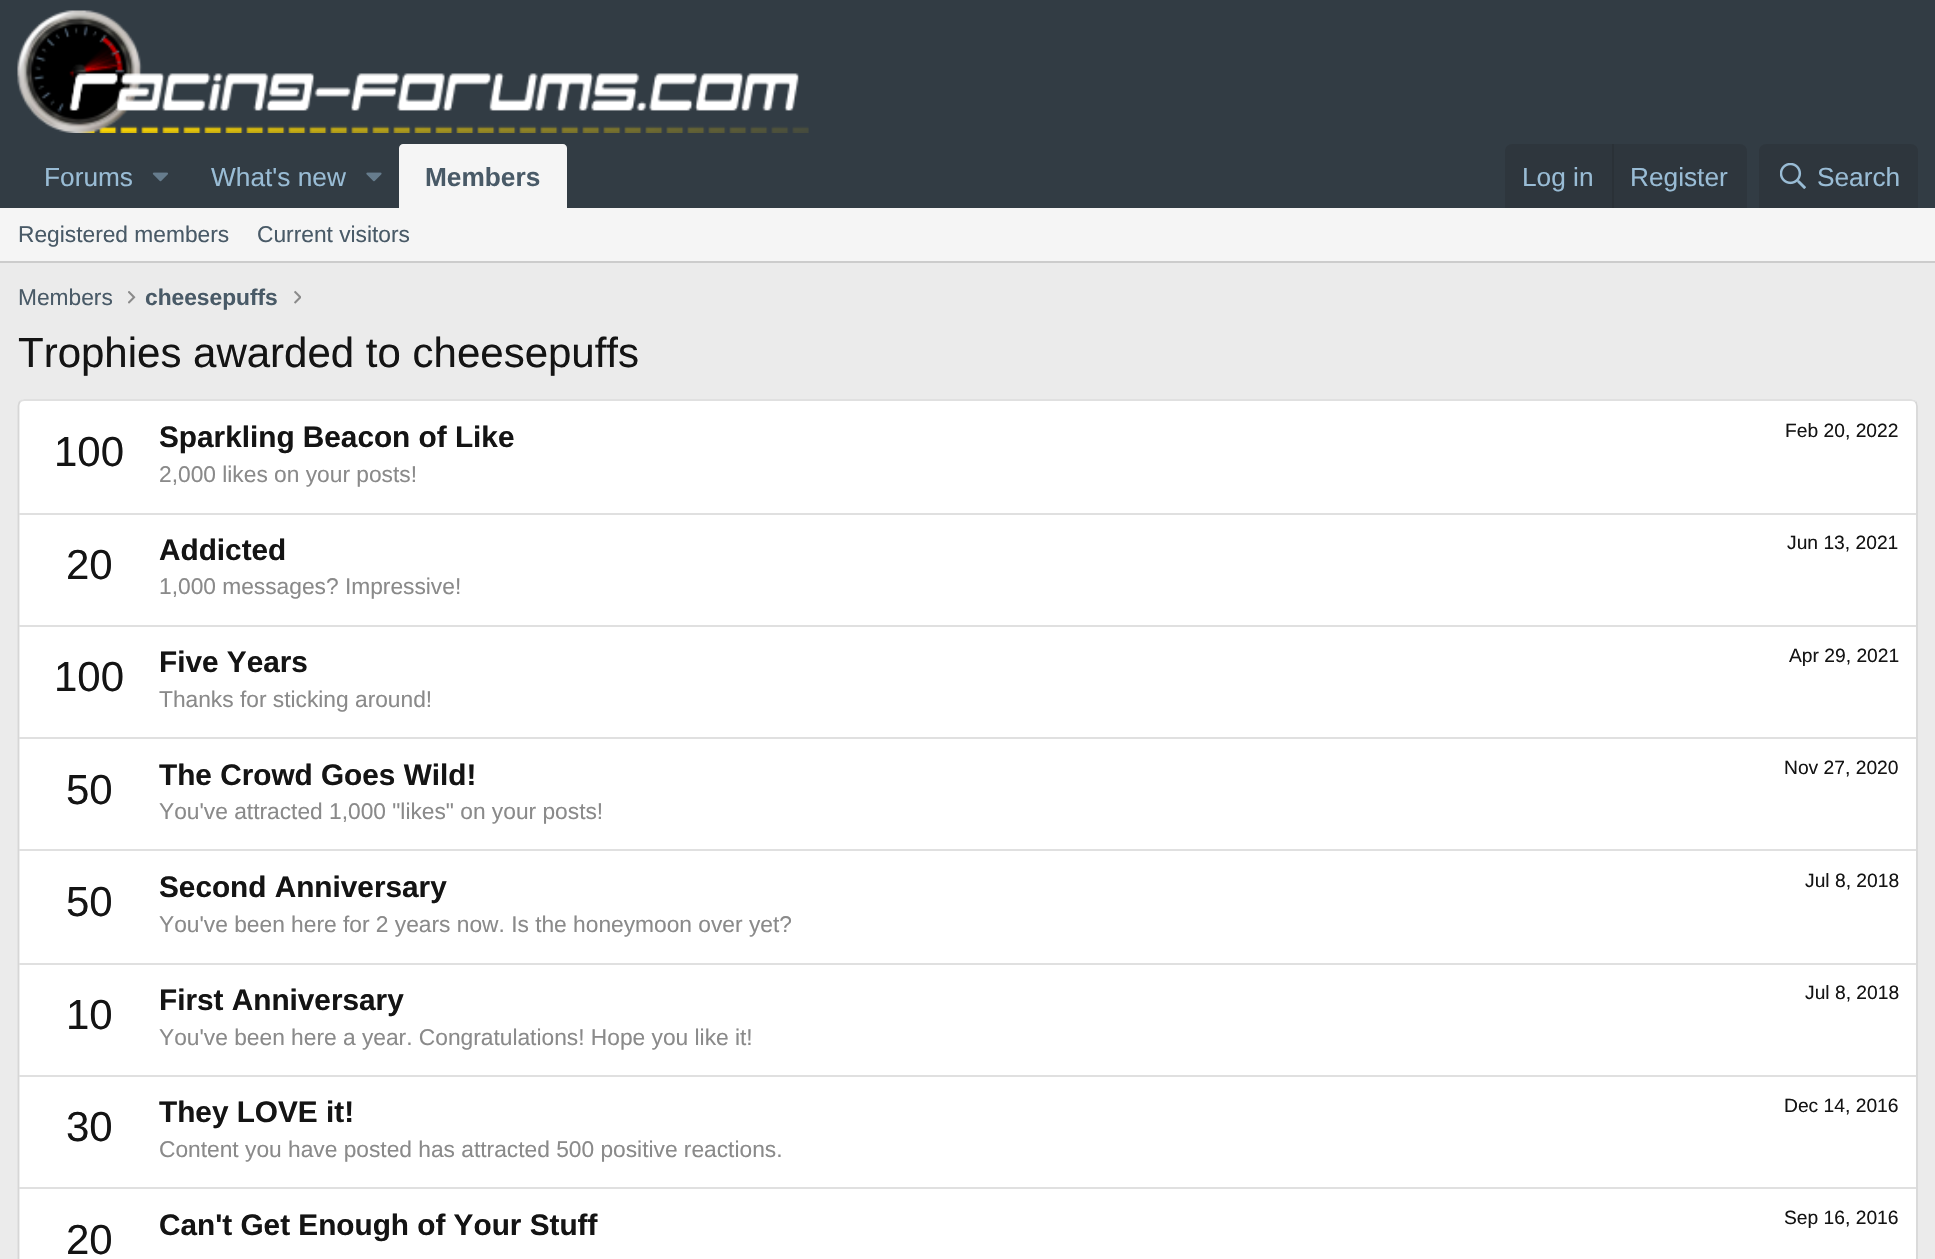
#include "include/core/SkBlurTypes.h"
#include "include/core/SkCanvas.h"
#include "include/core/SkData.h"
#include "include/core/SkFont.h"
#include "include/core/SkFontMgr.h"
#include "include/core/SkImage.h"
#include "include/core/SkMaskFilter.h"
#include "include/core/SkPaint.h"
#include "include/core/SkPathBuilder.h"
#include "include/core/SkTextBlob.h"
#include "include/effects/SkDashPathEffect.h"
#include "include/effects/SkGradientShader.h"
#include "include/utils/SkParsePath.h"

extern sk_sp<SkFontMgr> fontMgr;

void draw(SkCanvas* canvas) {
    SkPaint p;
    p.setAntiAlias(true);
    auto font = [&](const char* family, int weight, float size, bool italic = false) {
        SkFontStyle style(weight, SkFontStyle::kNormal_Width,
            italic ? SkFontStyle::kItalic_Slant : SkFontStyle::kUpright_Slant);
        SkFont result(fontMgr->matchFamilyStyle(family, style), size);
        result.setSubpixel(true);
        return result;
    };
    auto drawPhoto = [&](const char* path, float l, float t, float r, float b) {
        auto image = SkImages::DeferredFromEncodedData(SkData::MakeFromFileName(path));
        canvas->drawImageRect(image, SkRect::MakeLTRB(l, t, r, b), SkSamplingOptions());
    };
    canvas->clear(0xFFEBEBEB);
    p.setColor(0xFF323C44);
    canvas->drawRect(SkRect::MakeLTRB(0, 0, 1935, 208), p);
    drawPhoto("media/1.png", 17, 10, 809, 133);
    auto font1 = font("Liberation Sans", 400, 26.25f);
    p.setColor(0xFF99BCD5);
    canvas->drawString("Forums", 44, 186, font1, p);
    drawPhoto("media/2.png", 152, 172, 168, 182);
    canvas->drawString("What's new", 211, 186, font1, p);
    drawPhoto("media/3.png", 366, 172, 382, 182);
    p.setColor(0xFFF5F5F5);
    canvas->drawPath(SkPathBuilder().moveTo(403, 144).lineTo(563, 144).cubicTo(565, 144, 567, 146, 567, 148).lineTo(567, 208).lineTo(399, 208).lineTo(399, 148).cubicTo(399, 146, 401, 144, 403, 144).close().detach(), p);
    auto font2 = font("Liberation Sans", 700, 26.25f);
    p.setColor(0xFF495A67);
    canvas->drawString("Members", 425, 186, font2, p);
    p.setColor(0xFF2E363D);
    canvas->drawPath(SkPathBuilder().moveTo(1512, 144).lineTo(1740, 144).cubicTo(1744, 144, 1747, 147, 1747, 151).lineTo(1747, 208).lineTo(1505, 208).lineTo(1505, 151).cubicTo(1505, 147, 1508, 144, 1512, 144).close().detach(), p);
    p.setColor(0xFF99BCD5);
    canvas->drawString("Log in", 1522, 186, font1, p);
    p.setColor(0xFF2A3137);
    canvas->drawRect(SkRect::MakeLTRB(1612, 144, 1614, 208), p);
    p.setColor(0xFF99BCD5);
    canvas->drawString("Register", 1630, 186, font1, p);
    p.setColor(0xFF2E363D);
    canvas->drawPath(SkPathBuilder().moveTo(1766, 144).lineTo(1911, 144).cubicTo(1915, 144, 1918, 147, 1918, 151).lineTo(1918, 208).lineTo(1759, 208).lineTo(1759, 151).cubicTo(1759, 147, 1762, 144, 1766, 144).close().detach(), p);
    drawPhoto("media/4.png", 1780, 163, 1806, 189);
    p.setColor(0xFF99BCD5);
    canvas->drawString("Search", 1817, 186, font1, p);
    p.setColor(0xFFF5F5F5);
    canvas->drawRect(SkRect::MakeLTRB(0, 208, 1935, 261), p);
    p.setColor(0xFFCCCCCC);
    canvas->drawRect(SkRect::MakeLTRB(0, 261, 1935, 263), p);
    auto font3 = font("Liberation Sans", 400, 22.75f);
    p.setColor(0xFF495A67);
    {
        const struct { const char* s; float x, y; } items[] = {
            {"Registered members", 18, 242},
            {"Current visitors", 257, 242},
            {"Members", 18, 305},
        };
        for (auto [s, x, y] : items) {
            canvas->drawString(s, x, y, font3, p);
        }
    }
    drawPhoto("media/5.png", 128, 291, 136, 304);
    auto font4 = font("Liberation Sans", 700, 22.75f);
    canvas->drawString("cheesepuffs", 145, 305, font4, p);
    drawPhoto("media/6.png", 294, 290, 301, 304);
    auto font5 = font("Liberation Sans", 400, 42);
    p.setColor(0xFF141414);
    canvas->drawString("Trophies awarded to cheesepuffs", 18, 367, font5, p);
    p.setColor(0xFFFFFFFF);
    canvas->drawRoundRect(SkRect::MakeLTRB(18, 399, 1918, 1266), 7, 7, p);
    p.setStyle(SkPaint::kStroke_Style);
    p.setStrokeWidth(1.8f);
    p.setColor(0xFFE0E0E0);
    canvas->drawPath(SkPathBuilder().moveTo(20, 401.5f).cubicTo(21.5f, 400.5f, 23, 400, 24.5f, 400).lineTo(1911, 400).cubicTo(1912.5f, 400, 1914, 400.5f, 1915.5f, 401.5f).detach(), p);
    p.setColor(0xFFD6D6D6);
    canvas->drawPath(SkPathBuilder().moveTo(1915.5f, 401.5f).cubicTo(1916.5f, 403, 1917, 404.5f, 1917, 406).lineTo(1917, 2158).cubicTo(1917, 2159.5f, 1916.5f, 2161, 1915.5f, 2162).detach(), p);
    canvas->drawPath(SkPathBuilder().moveTo(20, 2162).cubicTo(19, 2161, 18.5f, 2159.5f, 18.5f, 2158).lineTo(18.5f, 406).cubicTo(18.5f, 404.5f, 19, 403, 20, 401.5f).detach(), p);
    p.setStyle(SkPaint::kFill_Style);
    p.setColor(0xFF141414);
    canvas->drawString("100", 54, 466, font5, p);
    auto font6 = font("Liberation Sans", 700, 29.75f);
    canvas->drawString("Sparkling Beacon of Like", 159, 447, font6, p);
    auto font7 = font("Liberation Sans", 400, 19.25f);
    canvas->drawString("Feb 20, 2022", 1785, 437, font7, p);
    p.setColor(0xFF8A8A8A);
    canvas->drawString("2,000 likes on your posts!", 159, 482, font3, p);
    p.setColor(0xFFE0E0E0);
    canvas->drawRect(SkRect::MakeLTRB(19, 513, 1916, 515), p);
    p.setColor(0xFF141414);
    canvas->drawString("20", 66, 579, font5, p);
    canvas->drawString("Addicted", 159, 560, font6, p);
    canvas->drawString("Jun 13, 2021", 1787, 549, font7, p);
    p.setColor(0xFF8A8A8A);
    canvas->drawString("1,000 messages? Impressive!", 159, 594, font3, p);
    p.setColor(0xFFE0E0E0);
    canvas->drawRect(SkRect::MakeLTRB(19, 625, 1916, 627), p);
    p.setColor(0xFF141414);
    canvas->drawString("100", 54, 691, font5, p);
    canvas->drawString("Five Years", 159, 672, font6, p);
    canvas->drawString("Apr 29, 2021", 1789, 662, font7, p);
    p.setColor(0xFF8A8A8A);
    canvas->drawString("Thanks for sticking around!", 159, 707, font3, p);
    p.setColor(0xFFE0E0E0);
    canvas->drawRect(SkRect::MakeLTRB(19, 737, 1916, 739), p);
    p.setColor(0xFF141414);
    canvas->drawString("50", 66, 804, font5, p);
    canvas->drawString("The Crowd Goes Wild!", 159, 785, font6, p);
    canvas->drawString("Nov 27, 2020", 1784, 774, font7, p);
    p.setColor(0xFF8A8A8A);
    canvas->drawString("You've attracted 1,000 \"likes\" on your posts!", 159, 819, font3, p);
    p.setColor(0xFFE0E0E0);
    canvas->drawRect(SkRect::MakeLTRB(19, 849, 1916, 851), p);
    p.setColor(0xFF141414);
    canvas->drawString("50", 66, 916, font5, p);
    canvas->drawString("Second Anniversary", 159, 897, font6, p);
    canvas->drawString("Jul 8, 2018", 1805, 887, font7, p);
    p.setColor(0xFF8A8A8A);
    canvas->drawString("You've been here for 2 years now. Is the honeymoon over yet?", 159, 932, font3, p);
    p.setColor(0xFFE0E0E0);
    canvas->drawRect(SkRect::MakeLTRB(19, 963, 1916, 965), p);
    p.setColor(0xFF141414);
    canvas->drawString("10", 66, 1029, font5, p);
    canvas->drawString("First Anniversary", 159, 1010, font6, p);
    canvas->drawString("Jul 8, 2018", 1805, 999, font7, p);
    p.setColor(0xFF8A8A8A);
    canvas->drawString("You've been here a year. Congratulations! Hope you like it!", 159, 1045, font3, p);
    p.setColor(0xFFE0E0E0);
    canvas->drawRect(SkRect::MakeLTRB(19, 1075, 1916, 1077), p);
    p.setColor(0xFF141414);
    canvas->drawString("30", 66, 1141, font5, p);
    canvas->drawString("They LOVE it!", 159, 1122, font6, p);
    canvas->drawString("Dec 14, 2016", 1784, 1112, font7, p);
    p.setColor(0xFF8A8A8A);
    canvas->drawString("Content you have posted has attracted 500 positive reactions.", 159, 1157, font3, p);
    p.setColor(0xFFE0E0E0);
    canvas->drawRect(SkRect::MakeLTRB(19, 1187, 1916, 1189), p);
    p.setColor(0xFF141414);
    canvas->drawString("20", 66, 1254, font5, p);
    canvas->drawString("Can't Get Enough of Your Stuff", 159, 1235, font6, p);
    canvas->drawString("Sep 16, 2016", 1784, 1224, font7, p);
}
